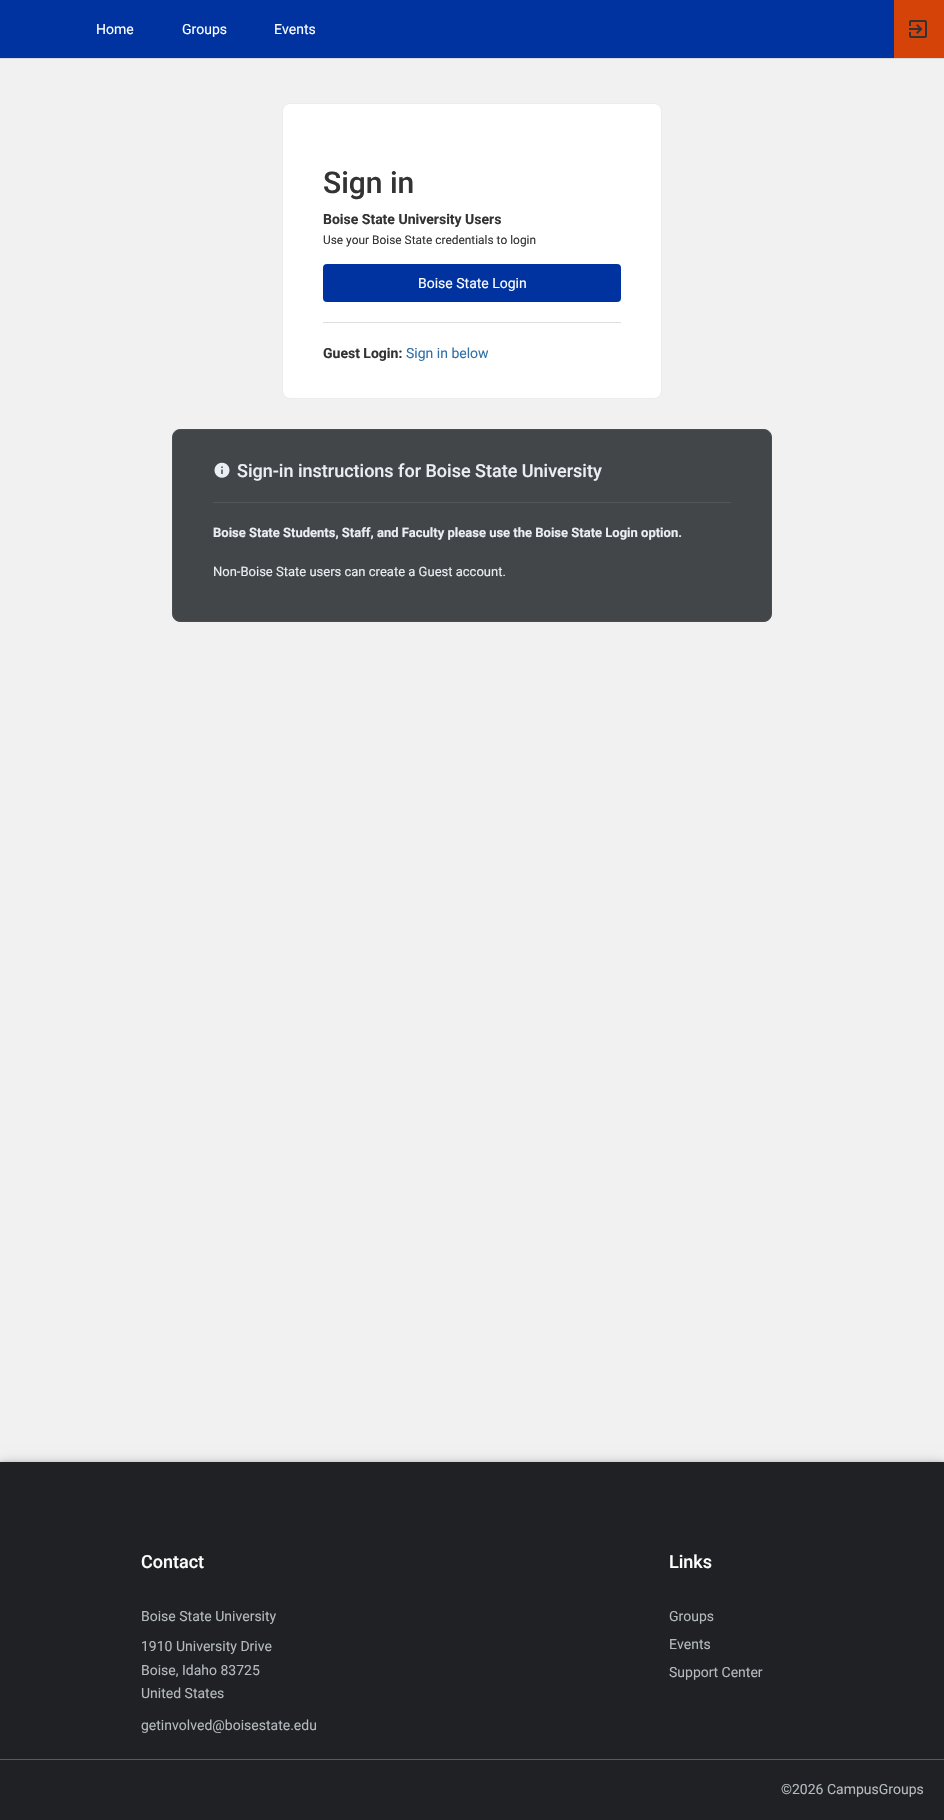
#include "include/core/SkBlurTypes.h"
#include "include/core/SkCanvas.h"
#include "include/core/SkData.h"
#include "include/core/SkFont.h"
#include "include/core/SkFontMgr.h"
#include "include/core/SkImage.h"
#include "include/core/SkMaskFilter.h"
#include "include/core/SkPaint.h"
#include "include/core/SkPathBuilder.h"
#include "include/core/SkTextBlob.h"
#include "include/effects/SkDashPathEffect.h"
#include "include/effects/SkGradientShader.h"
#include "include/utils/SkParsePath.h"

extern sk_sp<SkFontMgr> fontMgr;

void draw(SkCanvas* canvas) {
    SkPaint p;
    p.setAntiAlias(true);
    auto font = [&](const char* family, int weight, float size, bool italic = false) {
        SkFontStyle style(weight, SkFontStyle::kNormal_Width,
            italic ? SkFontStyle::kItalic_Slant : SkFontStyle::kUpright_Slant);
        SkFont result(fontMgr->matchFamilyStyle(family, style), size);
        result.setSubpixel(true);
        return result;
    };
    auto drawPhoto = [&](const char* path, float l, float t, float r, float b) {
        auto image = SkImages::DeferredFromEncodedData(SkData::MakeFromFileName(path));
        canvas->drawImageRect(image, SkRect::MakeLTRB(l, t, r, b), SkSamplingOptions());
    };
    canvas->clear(0xFFF1F1F1);
    p.setColor(0xFF0033A0);
    canvas->drawRect(SkRect::MakeLTRB(0, 0, 894, 58), p);
    p.setColor(0xFFD9D9D9);
    canvas->drawRect(SkRect::MakeLTRB(0, 58, 944, 59), p);
    auto font1 = font("Roboto", 400, 14);
    p.setColor(0xFFFFFFFF);
    {
        const struct { const char* s; float x, y; } items[] = {
            {"Home", 96, 34},
            {"Groups", 182, 34},
            {"Events", 274, 34},
        };
        for (auto [s, x, y] : items) {
            canvas->drawString(s, x, y, font1, p);
        }
    }
    p.setColor(0xFFD64309);
    canvas->drawRect(SkRect::MakeLTRB(894, 0, 944, 58), p);
    drawPhoto("media/1.png", 909, 20, 927, 38);
    p.setColor(0xFFFFFFFF);
    canvas->drawRoundRect(SkRect::MakeLTRB(282.5f, 103.5f, 661.5f, 398.5f), 7.5f, 7.5f, p);
    p.setStyle(SkPaint::kStroke_Style);
    p.setStrokeWidth(1);
    p.setColor(0xFFECECEC);
    canvas->drawRoundRect(SkRect::MakeLTRB(282.5f, 103.5f, 661.5f, 398.5f), 7.5f, 7.5f, p);
    auto font2 = font("Roboto", 500, 30);
    p.setStyle(SkPaint::kFill_Style);
    p.setColor(0xFF333333);
    canvas->drawString("Sign in", 323, 193, font2, p);
    auto font3 = font("Roboto", 700, 14);
    canvas->drawString("Boise State University Users", 323, 224, font3, p);
    auto font4 = font("Roboto", 400, 11.9f);
    canvas->drawString("Use your Boise State credentials to login", 323, 244, font4, p);
    p.setColor(0xFF0033A0);
    canvas->drawRoundRect(SkRect::MakeLTRB(323, 264, 621, 302), 4, 4, p);
    p.setColor(0xFFFFFFFF);
    canvas->drawString("Boise State Login", 418, 288, font1, p);
    p.setColor(0xFFE0E0E0);
    canvas->drawRect(SkRect::MakeLTRB(323, 322, 621, 323), p);
    p.setColor(0xFF333333);
    canvas->drawString("Guest Login:", 323, 358, font3, p);
    p.setColor(0xFF3071AB);
    canvas->drawString("Sign in below", 406, 358, font1, p);
    p.setColor(0xFF424649);
    canvas->drawRoundRect(SkRect::MakeLTRB(172.5f, 429.5f, 771.5f, 621.5f), 7.5f, 7.5f, p);
    p.setStyle(SkPaint::kStroke_Style);
    p.setColor(0xFF4B4E51);
    canvas->drawRoundRect(SkRect::MakeLTRB(172.5f, 429.5f, 771.5f, 621.5f), 7.5f, 7.5f, p);
    drawPhoto("media/2.png", 214, 462, 230, 478);
    auto font5 = font("Roboto", 500, 18);
    p.setStyle(SkPaint::kFill_Style);
    p.setColor(0xFFEAEFF3);
    canvas->drawString("Sign-in instructions for Boise State University", 237, 477, font5, p);
    p.setColor(0xFF53575A);
    canvas->drawRect(SkRect::MakeLTRB(213, 502, 731, 503), p);
    auto font6 = font("Roboto", 700, 13);
    p.setColor(0xFFEAEFF3);
    canvas->drawString("Boise State Students, Staff, and Faculty please use the Boise State Login option.", 213, 537, font6, p);
    auto font7 = font("Roboto", 400, 13);
    canvas->drawString("Non-Boise State users can create a Guest account.", 213, 576, font7, p);
    p.setColor(0x24000000);
    p.setMaskFilter(SkMaskFilter::MakeBlur(kNormal_SkBlurStyle, 5));
    canvas->drawRect(SkRect::MakeLTRB(0, 1461, 944, 1819), p);
    p.setMaskFilter(nullptr);
    p.setColor(0x1A000000);
    p.setMaskFilter(SkMaskFilter::MakeBlur(kNormal_SkBlurStyle, 1.5f));
    canvas->drawRect(SkRect::MakeLTRB(0, 1461, 944, 1819), p);
    p.setMaskFilter(nullptr);
    p.setColor(0xFF202124);
    canvas->drawRect(SkRect::MakeLTRB(0, 1462, 944, 1820), p);
    p.setColor(0xFFFFFFFF);
    canvas->drawString("Contact", 141, 1568, font5, p);
    p.setColor(0xFFB3B9BD);
    {
        const struct { const char* s; float x, y; } items[] = {
            {"Boise State University", 141, 1621},
            {"1910 University Drive", 141, 1651},
            {"Boise, Idaho 83725", 141, 1675},
            {"United States", 141, 1698},
            {"getinvolved@boisestate.edu", 141, 1730},
        };
        for (auto [s, x, y] : items) {
            canvas->drawString(s, x, y, font1, p);
        }
    }
    p.setColor(0xFFFFFFFF);
    canvas->drawString("Links", 669, 1568, font5, p);
    p.setColor(0xFFB3B9BD);
    {
        const struct { const char* s; float x, y; } items[] = {
            {"Groups", 669, 1621},
            {"Events", 669, 1649},
            {"Support Center", 669, 1677},
        };
        for (auto [s, x, y] : items) {
            canvas->drawString(s, x, y, font1, p);
        }
    }
    p.setColor(0xFF5A5A5A);
    canvas->drawRect(SkRect::MakeLTRB(0, 1759, 944, 1760), p);
    p.setColor(0xFFB3B9BD);
    canvas->drawString("©2026 CampusGroups", 781, 1794, font1, p);
}
